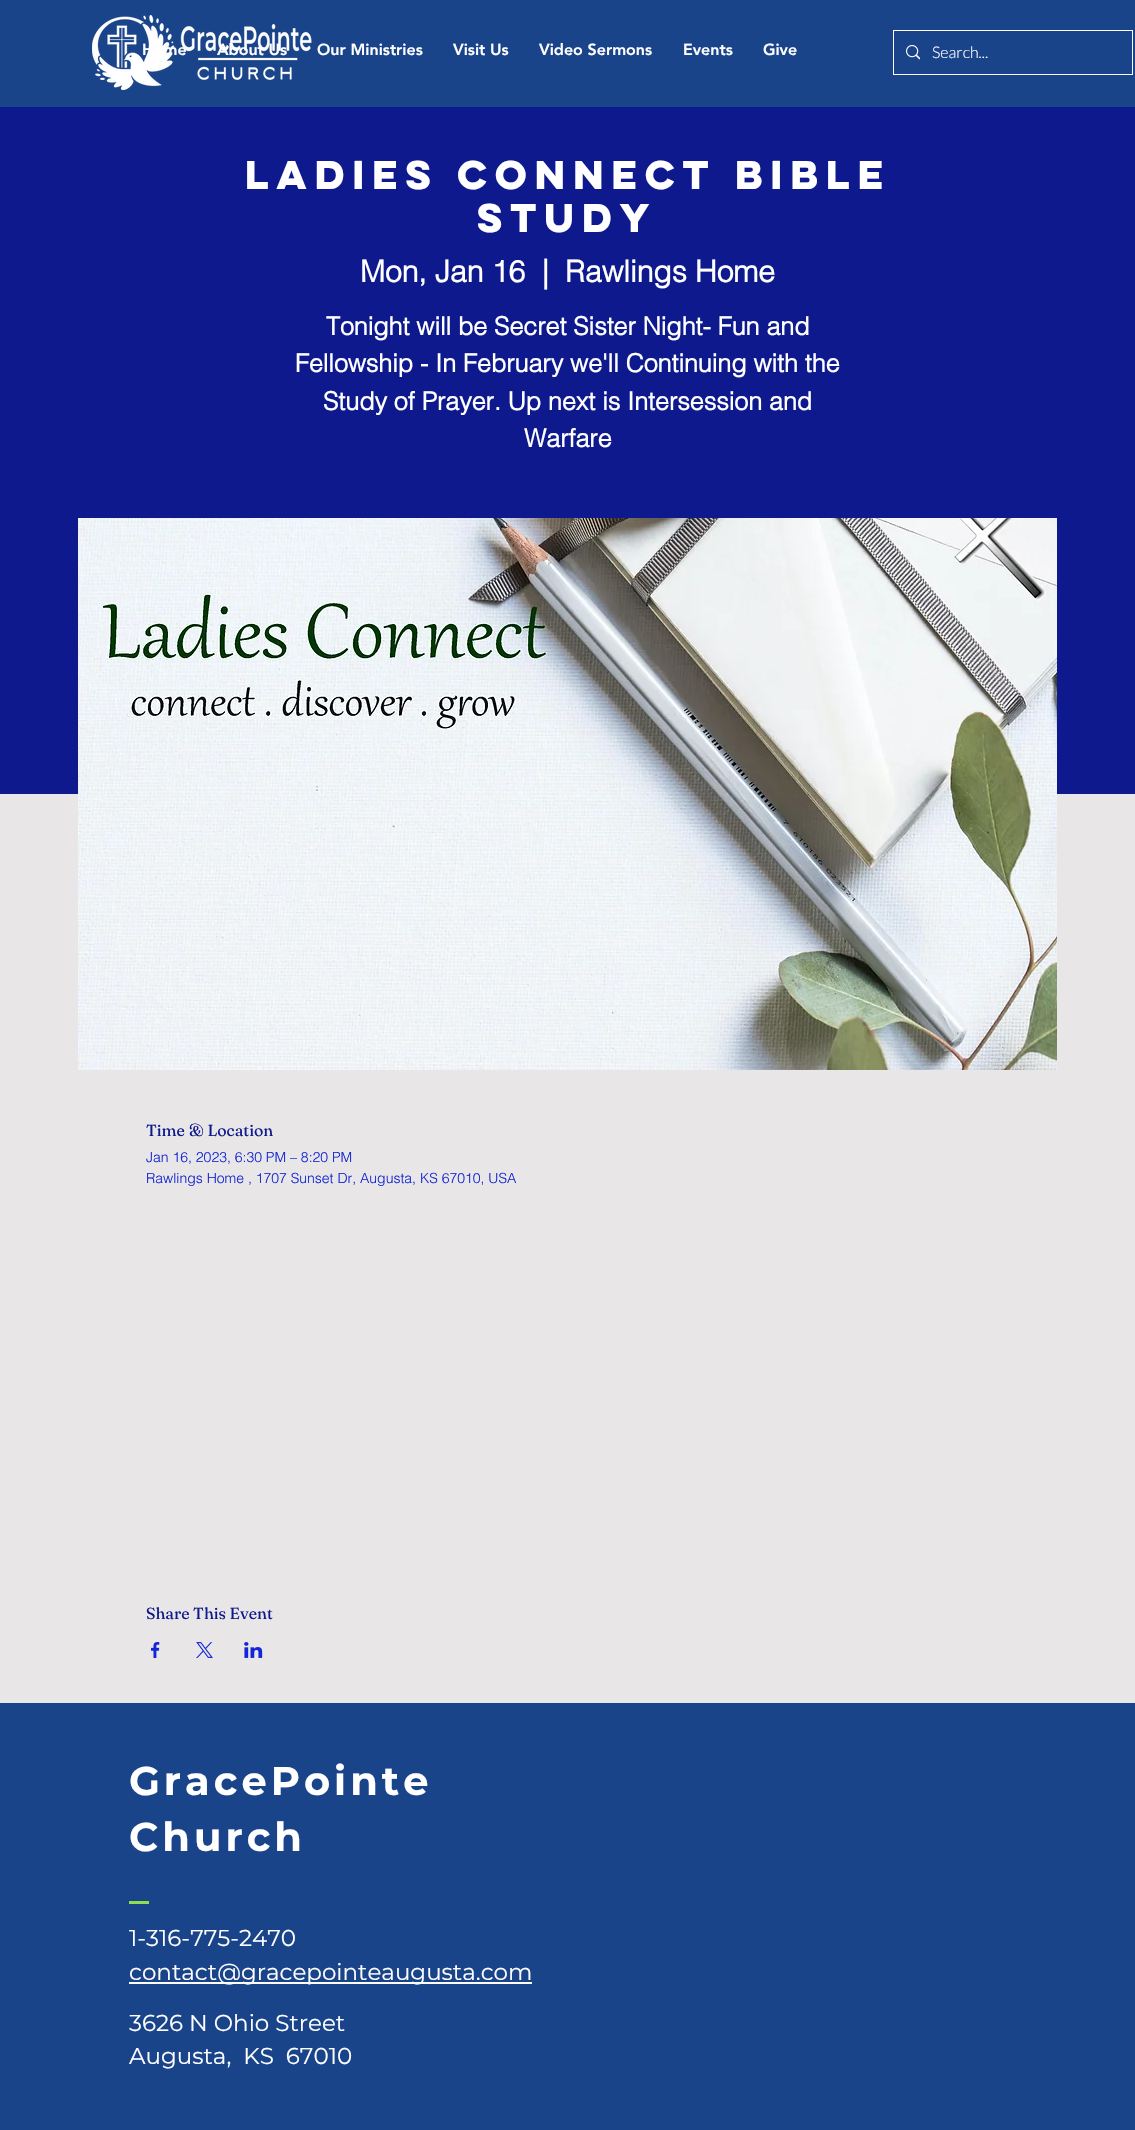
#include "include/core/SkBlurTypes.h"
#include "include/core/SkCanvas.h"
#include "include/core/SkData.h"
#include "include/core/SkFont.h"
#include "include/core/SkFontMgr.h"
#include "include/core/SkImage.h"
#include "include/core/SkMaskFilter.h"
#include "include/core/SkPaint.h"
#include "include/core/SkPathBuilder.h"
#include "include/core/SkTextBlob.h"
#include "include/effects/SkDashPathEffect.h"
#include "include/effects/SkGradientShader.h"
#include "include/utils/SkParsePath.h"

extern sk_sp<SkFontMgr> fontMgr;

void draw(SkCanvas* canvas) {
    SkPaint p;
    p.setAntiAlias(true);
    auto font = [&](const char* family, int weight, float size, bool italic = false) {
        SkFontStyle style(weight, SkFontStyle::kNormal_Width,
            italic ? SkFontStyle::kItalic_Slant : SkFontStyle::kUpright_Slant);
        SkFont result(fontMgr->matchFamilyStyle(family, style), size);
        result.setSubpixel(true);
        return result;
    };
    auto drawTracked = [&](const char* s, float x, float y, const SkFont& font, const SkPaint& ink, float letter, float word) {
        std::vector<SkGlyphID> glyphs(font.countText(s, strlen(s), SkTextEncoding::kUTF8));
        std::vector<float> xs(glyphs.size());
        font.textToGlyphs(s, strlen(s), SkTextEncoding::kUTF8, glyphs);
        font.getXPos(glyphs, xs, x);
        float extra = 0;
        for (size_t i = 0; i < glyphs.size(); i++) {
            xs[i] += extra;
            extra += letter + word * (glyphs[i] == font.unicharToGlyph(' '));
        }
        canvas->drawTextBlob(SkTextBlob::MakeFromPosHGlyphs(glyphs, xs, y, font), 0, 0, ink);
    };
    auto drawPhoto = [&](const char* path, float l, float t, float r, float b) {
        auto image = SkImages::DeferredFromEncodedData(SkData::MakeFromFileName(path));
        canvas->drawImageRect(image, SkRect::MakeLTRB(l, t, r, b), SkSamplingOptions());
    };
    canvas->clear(0xFFE8E6E6);
    p.setColor(0xFF1A4489);
    canvas->drawRect(SkRect::MakeLTRB(0, 0, 1135, 107), p);
    drawPhoto("media/1.png", 92, 15, 312, 90);
    auto font1 = font("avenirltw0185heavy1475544", 900, 16);
    p.setColor(0xFFFFFFFF);
    {
        const struct { const char* s; float x, y; } items[] = {
            {"Home", 142, 55},
            {"About Us", 217, 55},
            {"Our Ministries", 317, 55},
            {"Visit Us", 453, 55},
            {"Video Sermons", 539, 55},
            {"Events", 683, 55},
            {"Give", 763, 55},
        };
        for (auto [s, x, y] : items) {
            canvas->drawString(s, x, y, font1, p);
        }
    }
    p.setStyle(SkPaint::kStroke_Style);
    p.setStrokeWidth(1);
    canvas->drawRect(SkRect::MakeLTRB(893.5f, 30.5f, 1132.5f, 74.5f), p);
    drawPhoto("media/2.png", 906, 45, 920, 60);
    auto font2 = font("Lato", 300, 16);
    p.setStyle(SkPaint::kFill_Style);
    canvas->drawString("Search...", 932, 58, font2, p);
    p.setColor(0xFF0D198D);
    canvas->drawRect(SkRect::MakeLTRB(0, 107, 1135, 794), p);
    auto font3 = font("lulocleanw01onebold", 700, 36);
    p.setColor(0xFFFFFFFF);
    canvas->drawString("Ladies Connect Bible", 245, 189, font3, p);
    canvas->drawString("Study", 477, 232, font3, p);
    auto font4 = font("helvetica", 700, 30);
    {
        const struct { const char* s; float x, y; } items[] = {
            {"Mon, Jan 16", 360, 282},
            {"|", 542, 282},
            {"Rawlings Home", 565, 282},
        };
        for (auto [s, x, y] : items) {
            canvas->drawString(s, x, y, font4, p);
        }
    }
    auto font5 = font("helvetica", 700, 25);
    {
        const struct { const char* s; float x, y; } items[] = {
            {"Tonight will be Secret Sister Night- Fun and", 326, 335},
            {"Fellowship - In February we'll Continuing with the", 295, 372},
            {"Study of Prayer. Up next is Intersession and", 323, 410},
            {"Warfare", 524, 447},
        };
        for (auto [s, x, y] : items) {
            canvas->drawString(s, x, y, font5, p);
        }
    }
    drawPhoto("media/3.png", 78, 518, 1057, 1070);
    auto font6 = font("Fraunces", 400, 16);
    p.setColor(0xFF0D198D);
    canvas->drawString("Time & Location", 146, 1136, font6, p);
    auto font7 = font("helvetica", 300, 14);
    p.setColor(0xFF1325D4);
    canvas->drawString("Jan 16, 2023, 6:30 PM – 8:20 PM", 146, 1162, font7, p);
    canvas->drawString("Rawlings Home , 1707 Sunset Dr, Augusta, KS 67010, USA", 146, 1183, font7, p);
    p.setColor(0xFF0D198D);
    canvas->drawString("Share This Event", 146, 1619, font6, p);
    drawPhoto("media/4.png", 151, 1642, 160, 1658);
    drawPhoto("media/5.png", 196, 1642, 213, 1658);
    drawPhoto("media/6.png", 244, 1642, 263, 1658);
    p.setColor(0xFF1A4489);
    canvas->drawRect(SkRect::MakeLTRB(0, 1703, 1135, 2130), p);
    auto font8 = font("Montserrat", 700, 40);
    p.setColor(0xFFFFFFFF);
    drawTracked("GracePointe", 129, 1795, font8, p, 4, 0);
    drawTracked("Church", 129, 1851, font8, p, 4, 0);
    p.setColor(0xFF8BDF51);
    canvas->drawRect(SkRect::MakeLTRB(129, 1901, 149, 1904), p);
    auto font9 = font("Montserrat", 400, 23);
    p.setColor(0xFFFFFFFF);
    canvas->drawString("1-316-775-2470", 129, 1946, font9, p);
    canvas->drawRect(SkRect::MakeLTRB(129, 1982, 532, 1984), p);
    {
        const struct { const char* s; float x, y; } items[] = {
            {"contact@gracepointeaugusta.com", 129, 1980},
            {"3626 N Ohio Street", 129, 2031},
            {"Augusta,  KS  67010", 129, 2064},
        };
        for (auto [s, x, y] : items) {
            canvas->drawString(s, x, y, font9, p);
        }
    }
}
